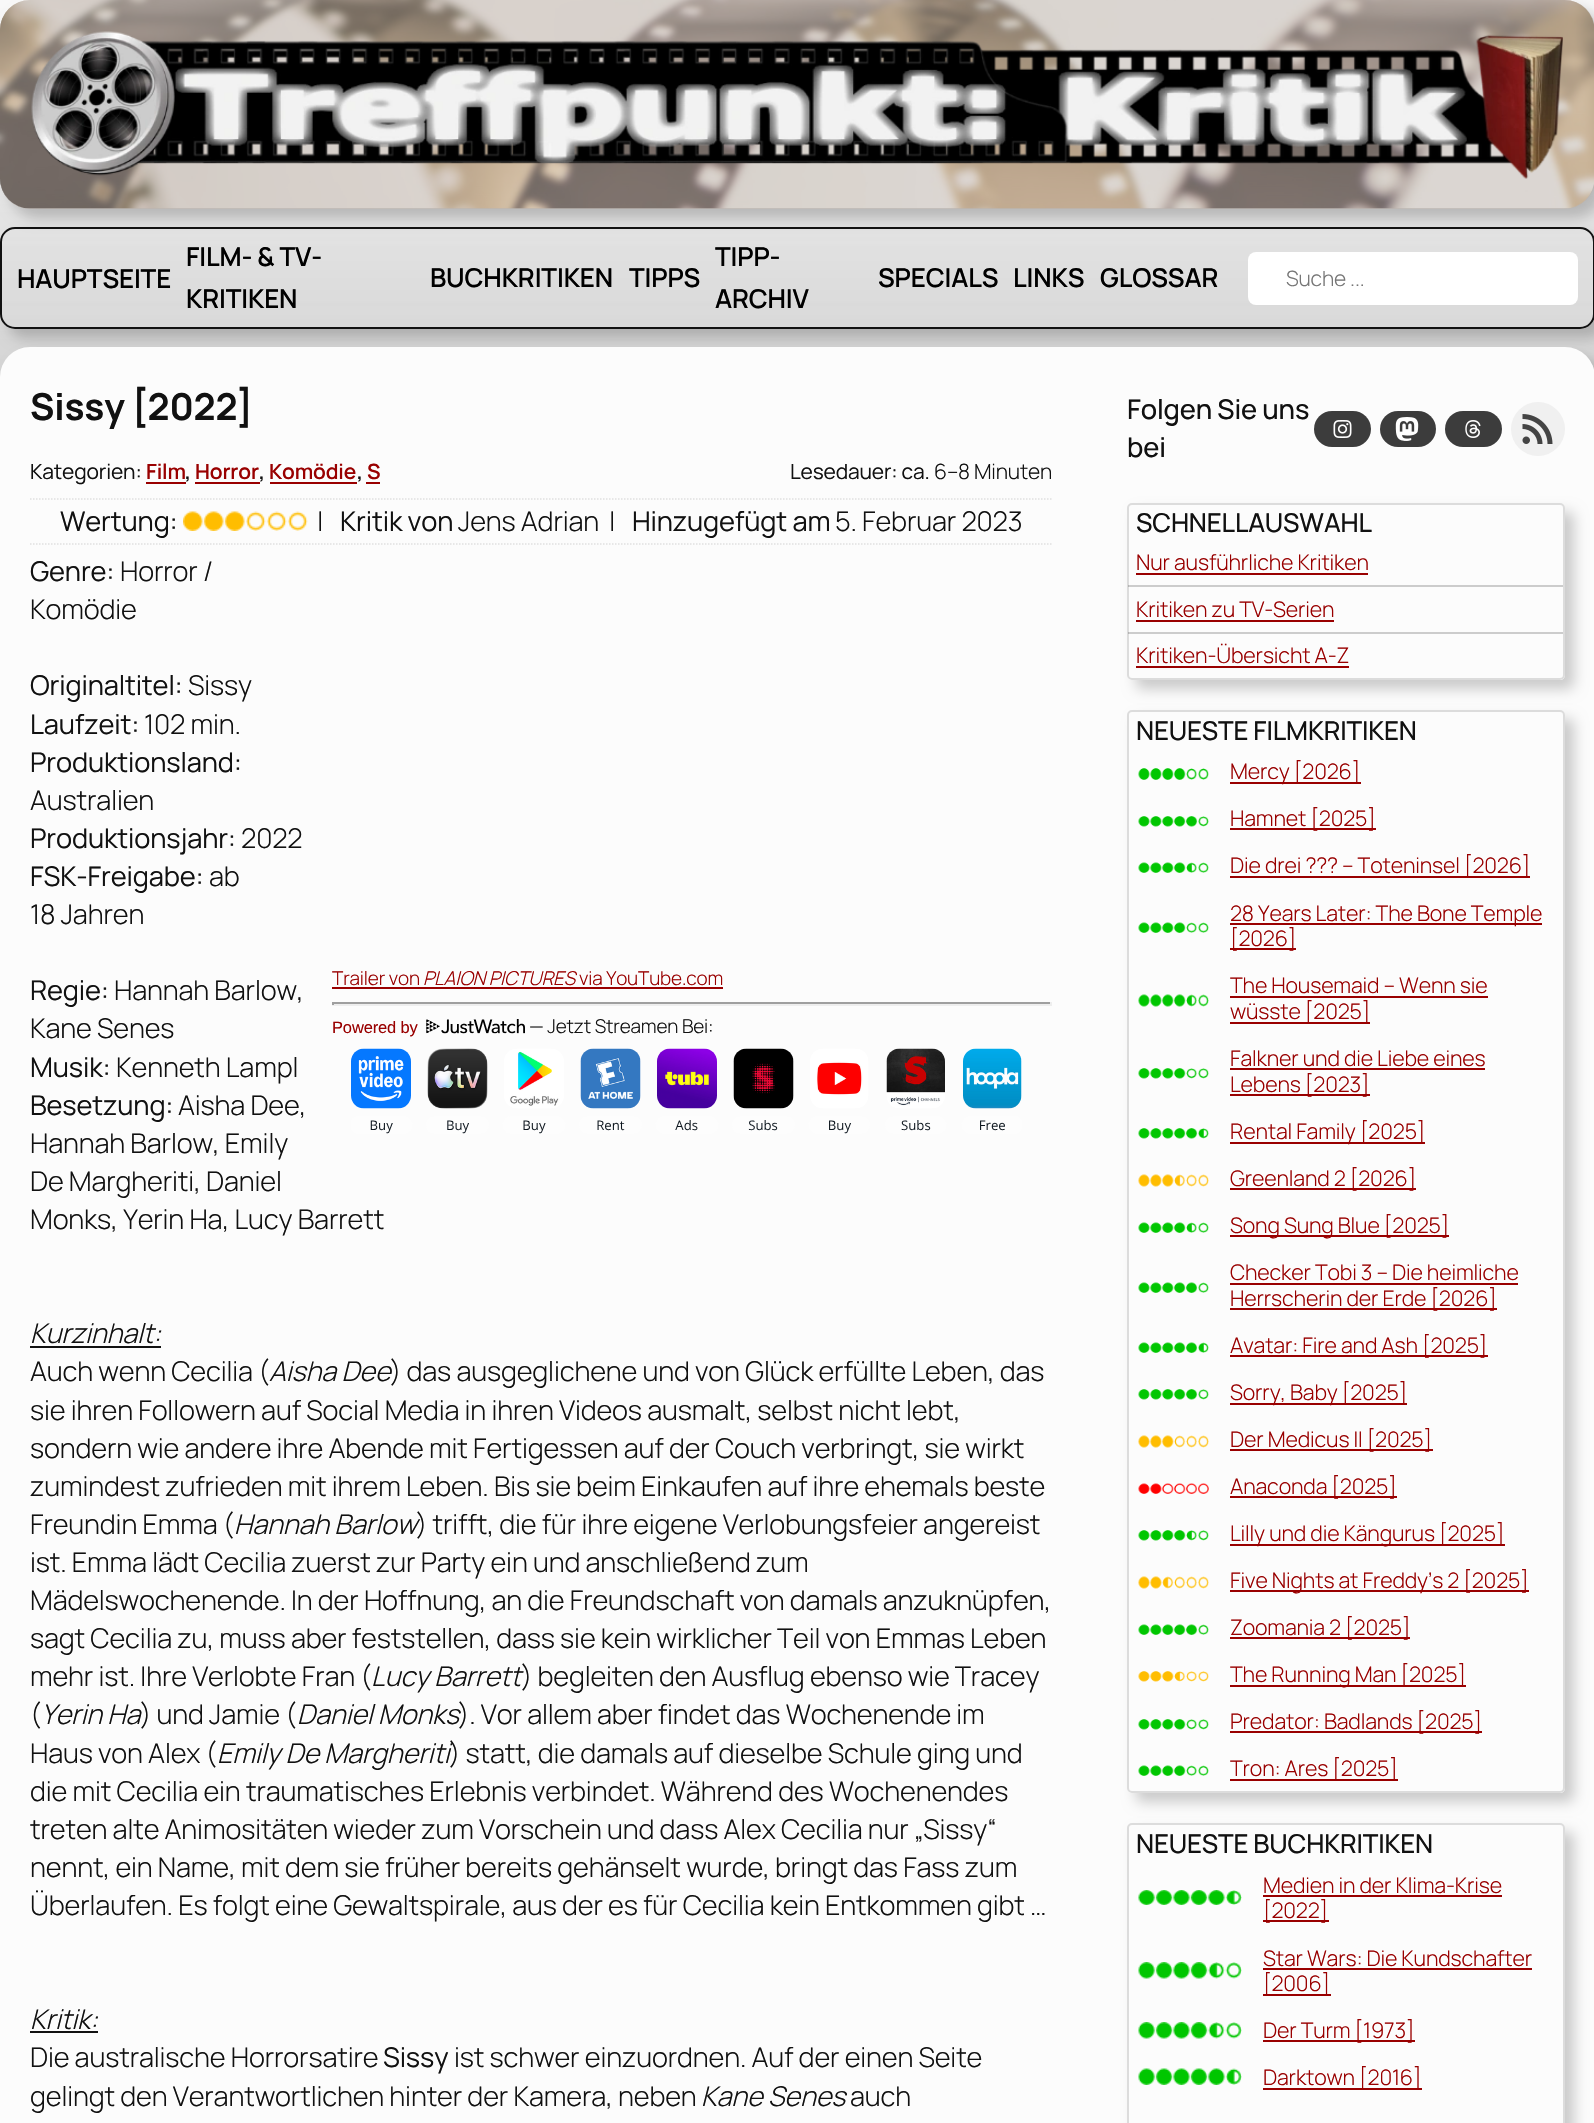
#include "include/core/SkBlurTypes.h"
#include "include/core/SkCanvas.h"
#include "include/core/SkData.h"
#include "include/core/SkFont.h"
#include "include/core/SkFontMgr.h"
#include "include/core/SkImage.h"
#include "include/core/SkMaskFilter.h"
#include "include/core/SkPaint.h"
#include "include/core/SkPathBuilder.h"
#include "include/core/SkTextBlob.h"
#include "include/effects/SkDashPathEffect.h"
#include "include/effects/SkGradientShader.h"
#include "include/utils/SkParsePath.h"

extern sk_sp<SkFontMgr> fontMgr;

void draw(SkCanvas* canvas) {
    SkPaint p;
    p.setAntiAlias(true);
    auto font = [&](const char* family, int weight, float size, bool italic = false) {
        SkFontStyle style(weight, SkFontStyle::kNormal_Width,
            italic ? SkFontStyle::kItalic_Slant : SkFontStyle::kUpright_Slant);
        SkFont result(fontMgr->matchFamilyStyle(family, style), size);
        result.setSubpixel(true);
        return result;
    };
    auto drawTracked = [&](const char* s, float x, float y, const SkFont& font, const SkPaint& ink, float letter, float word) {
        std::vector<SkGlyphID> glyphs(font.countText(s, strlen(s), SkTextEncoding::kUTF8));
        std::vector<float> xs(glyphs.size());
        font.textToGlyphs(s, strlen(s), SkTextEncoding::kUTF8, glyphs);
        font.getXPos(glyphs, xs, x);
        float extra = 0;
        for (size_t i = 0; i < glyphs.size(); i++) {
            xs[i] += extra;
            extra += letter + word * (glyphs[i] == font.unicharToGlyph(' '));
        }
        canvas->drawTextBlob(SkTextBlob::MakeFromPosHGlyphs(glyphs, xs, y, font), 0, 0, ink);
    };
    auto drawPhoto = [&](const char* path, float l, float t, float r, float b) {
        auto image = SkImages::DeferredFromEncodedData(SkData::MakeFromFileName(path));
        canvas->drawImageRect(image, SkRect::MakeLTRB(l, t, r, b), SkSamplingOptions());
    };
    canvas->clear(0xFFFFFFFF);
    drawPhoto("media/1.png", 0, 0, 1594, 377);
    p.setColor(0x33000000);
    p.setMaskFilter(SkMaskFilter::MakeBlur(kNormal_SkBlurStyle, 7));
    canvas->drawRoundRect(SkRect::MakeLTRB(9, 9, 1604, 218), 30, 30, p);
    p.setMaskFilter(nullptr);
    drawPhoto("media/2.png", 0, 0, 1594, 209);
    p.setColor(0x80BBB2A9);
    canvas->drawRoundRect(SkRect::MakeLTRB(0, 0, 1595, 209), 30, 30, p);
    drawPhoto("media/3.png", 31, 31, 1563, 179);
    canvas->save();
    canvas->clipPath(SkPathBuilder(SkPathFillType::kEvenOdd).moveTo(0, 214).lineTo(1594, 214).lineTo(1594, 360).lineTo(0, 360).close().moveTo(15, 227).lineTo(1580, 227).cubicTo(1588.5f, 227, 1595, 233.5f, 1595, 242).lineTo(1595, 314).cubicTo(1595, 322.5f, 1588.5f, 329, 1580, 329).lineTo(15, 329).cubicTo(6.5f, 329, 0, 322.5f, 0, 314).lineTo(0, 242).cubicTo(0, 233.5f, 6.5f, 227, 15, 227).close().detach(), true);
    p.setColor(0x33000000);
    p.setMaskFilter(SkMaskFilter::MakeBlur(kNormal_SkBlurStyle, 7));
    canvas->drawRoundRect(SkRect::MakeLTRB(9, 236, 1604, 338), 15, 15, p);
    p.setMaskFilter(nullptr);
    canvas->restore();
    p.setStyle(SkPaint::kStroke_Style);
    p.setStrokeWidth(2);
    p.setColor(0xFF111111);
    canvas->drawRoundRect(SkRect::MakeLTRB(1, 228, 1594, 328), 14, 14, p);
    auto font1 = font("Manrope", 600, 26);
    p.setStyle(SkPaint::kFill_Style);
    p.setColor(0xFF000000);
    {
        const struct { const char* s; float x, y; } items[] = {
            {"HAUPTSEITE", 17, 288},
            {"FILM- & TV-", 186, 266},
            {"KRITIKEN", 186, 308},
            {"BUCHKRITIKEN", 430, 287},
            {"TIPPS", 629, 287},
            {"TIPP-", 715, 266},
            {"ARCHIV", 715, 308},
            {"SPECIALS", 878, 287},
            {"LINKS", 1013, 287},
            {"GLOSSAR", 1100, 287},
        };
        for (auto [s, x, y] : items) {
            drawTracked(s, x, y, font1, p, -0.15f, 0);
        }
    }
    p.setColor(0xFFFFFFFF);
    canvas->drawRoundRect(SkRect::MakeLTRB(1248, 252, 1578, 305), 8, 8, p);
    auto font2 = font("Manrope", 300, 21);
    p.setColor(0xFF757575);
    drawTracked("Suche ...", 1286, 286, font2, p, -0.15f, 0);
    p.setColor(0x33000000);
    p.setMaskFilter(SkMaskFilter::MakeBlur(kNormal_SkBlurStyle, 7));
    canvas->drawRoundRect(SkRect::MakeLTRB(9, 356, 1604, 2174), 30, 30, p);
    p.setMaskFilter(nullptr);
    p.setColor(0xFFFCFCFC);
    canvas->drawRoundRect(SkRect::MakeLTRB(0, 347, 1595, 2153), 30, 30, p);
    auto font3 = font("Manrope", 700, 37);
    p.setColor(0xFF111111);
    drawTracked("Sissy [2022]", 30, 420, font3, p, -0.15f, 0);
    auto font4 = font("Manrope", 400, 21);
    drawTracked("Kategorien:", 30, 479, font4, p, -0.15f, 0);
    auto font5 = font("Manrope", 600, 21);
    p.setColor(0xFF990000);
    drawTracked("Film", 146, 479, font5, p, -0.15f, 0);
    canvas->drawRect(SkRect::MakeLTRB(146, 482, 186, 484), p);
    p.setColor(0xFF111111);
    drawTracked(",", 185, 479, font5, p, -0.15f, 0);
    p.setColor(0xFF990000);
    drawTracked("Horror", 195, 479, font5, p, -0.15f, 0);
    canvas->drawRect(SkRect::MakeLTRB(195, 482, 260, 484), p);
    p.setColor(0xFF111111);
    drawTracked(",", 259, 479, font5, p, -0.15f, 0);
    p.setColor(0xFF990000);
    drawTracked("Komödie", 269, 479, font5, p, -0.15f, 0);
    canvas->drawRect(SkRect::MakeLTRB(270, 482, 357, 484), p);
    p.setColor(0xFF111111);
    drawTracked(",", 357, 479, font5, p, -0.15f, 0);
    p.setColor(0xFF990000);
    drawTracked("S", 367, 479, font5, p, -0.15f, 0);
    canvas->drawRect(SkRect::MakeLTRB(366, 482, 380, 484), p);
    p.setColor(0xFF111111);
    drawTracked("Lesedauer: ca.", 790, 479, font4, p, -0.15f, 0);
    drawTracked("6–8 Minuten", 934, 479, font2, p, -0.15f, 0);
    p.setStyle(SkPaint::kStroke_Style);
    p.setStrokeWidth(1.5f);
    p.setColor(0xFFE0E0E0);
    p.setPathEffect(SkDashPathEffect::Make({{1.5f, 1.5f}}, 0));
    canvas->drawPath(SkPathBuilder().moveTo(30, 499).lineTo(1051.5f, 499).detach(), p);
    p.setPathEffect(nullptr);
    p.setPathEffect(SkDashPathEffect::Make({{1.5f, 1.5f}}, 0));
    canvas->drawPath(SkPathBuilder().moveTo(30, 544).lineTo(1051.5f, 544).detach(), p);
    p.setPathEffect(nullptr);
    auto font6 = font("Manrope", 400, 27.25f);
    p.setStyle(SkPaint::kFill_Style);
    p.setColor(0xFF111111);
    drawTracked("Wertung:", 60, 531, font6, p, -0.15f, 0);
    drawPhoto("media/4.png", 183, 511, 308, 531);
    auto font7 = font("Manrope", 300, 27.25f);
    drawTracked("|", 317, 531, font7, p, -0.15f, 0);
    drawTracked("Kritik von", 340, 531, font6, p, -0.15f, 0);
    drawTracked("Jens Adrian", 458, 531, font7, p, -0.15f, 0);
    drawTracked("|", 609, 531, font7, p, -0.15f, 0);
    drawTracked("Hinzugefügt am", 632, 531, font6, p, -0.15f, 0);
    drawTracked("5. Februar 2023", 835, 531, font7, p, -0.15f, 0);
    drawTracked("Genre:", 30, 581, font6, p, -0.15f, 0);
    drawTracked("Horror /", 120, 581, font7, p, -0.15f, 0);
    drawTracked("Komödie", 30, 619, font7, p, -0.15f, 0);
    drawTracked("Originaltitel:", 30, 695, font6, p, -0.15f, 0);
    drawTracked("Sissy", 188, 695, font7, p, -0.15f, 0);
    drawTracked("Laufzeit:", 30, 734, font6, p, -0.15f, 0);
    drawTracked("102 min.", 144, 734, font7, p, -0.15f, 0);
    drawTracked("Produktionsland:", 30, 772, font6, p, -0.15f, 0);
    drawTracked("Australien", 30, 810, font7, p, -0.15f, 0);
    drawTracked("Produktionsjahr:", 30, 848, font6, p, -0.15f, 0);
    drawTracked("2022", 241, 848, font7, p, -0.15f, 0);
    drawTracked("FSK-Freigabe:", 30, 886, font6, p, -0.15f, 0);
    drawTracked("ab", 209, 886, font7, p, -0.15f, 0);
    drawTracked("18 Jahren", 30, 924, font7, p, -0.15f, 0);
    drawTracked("Regie:", 30, 1000, font6, p, -0.15f, 0);
    drawTracked("Hannah Barlow,", 114, 1000, font7, p, -0.15f, 0);
    auto font8 = font("Manrope", 300, 19);
    p.setColor(0xFF990000);
    drawTracked("Trailer von", 332, 985, font8, p, -0.15f, 0);
    canvas->drawRect(SkRect::MakeLTRB(332, 987, 723, 989), p);
    auto font9 = font("Manrope", 300, 19, true);
    drawTracked("PLAION PICTURES", 423, 985, font9, p, -0.15f, 0);
    drawTracked("via YouTube.com", 579, 985, font8, p, -0.15f, 0);
    {
        const struct { float l, t, r, b; SkColor color; } items[] = {
            {332, 1002, 1052, 1004, 0xFF9F9F9F},
            {1050, 1002, 1052, 1005, 0xFFEEEEEE},
            {332, 1004, 1052, 1006, 0xFFEEEEEE},
            {332, 1002, 334, 1005, 0xFF9F9F9F},
        };
        for (auto [l, t, r, b, color] : items) {
            p.setColor(color);
            canvas->drawRect(SkRect::MakeLTRB(l, t, r, b), p);
        }
    }
    auto font10 = font("Liberation Sans", 400, 16.5f);
    p.setColor(0xFF990000);
    drawTracked("Powered by", 332, 1033, font10, p, -0.15f, 0);
    drawPhoto("media/5.png", 426, 1019, 525, 1034);
    p.setColor(0xFF111111);
    drawTracked("— Jetzt Streamen Bei:", 529, 1033, font8, p, -0.15f, 0);
    drawPhoto("media/6.png", 351, 1048, 1022, 1134);
    drawTracked("Kane Senes", 30, 1038, font7, p, -0.15f, 0);
    drawTracked("Musik:", 30, 1077, font6, p, -0.15f, 0);
    drawTracked("Kenneth Lampl", 116, 1077, font7, p, -0.15f, 0);
    drawTracked("Besetzung:", 30, 1115, font6, p, -0.15f, 0);
    {
        const struct { const char* s; float x, y; } items[] = {
            {"Aisha Dee,", 178, 1115},
            {"Hannah Barlow, Emily", 30, 1153},
            {"De Margheriti, Daniel", 30, 1191},
            {"Monks, Yerin Ha, Lucy Barrett", 30, 1229},
        };
        for (auto [s, x, y] : items) {
            drawTracked(s, x, y, font7, p, -0.15f, 0);
        }
    }
    auto font11 = font("Manrope", 300, 27.25f, true);
    drawTracked("Kurzinhalt:", 30, 1343, font11, p, -0.15f, 0);
    canvas->drawRect(SkRect::MakeLTRB(30, 1346, 161, 1348), p);
    drawTracked("Auch wenn Cecilia (", 30, 1381, font7, p, -0.15f, 0);
    drawTracked("Aisha Dee", 269, 1381, font11, p, -0.15f, 0);
    {
        const struct { const char* s; float x, y; } items[] = {
            {") das ausgeglichene und von Glück erfüllte Leben, das", 390, 1381},
            {"sie ihren Followern auf Social Media in ihren Videos ausmalt, selbst nicht lebt,", 30, 1420},
            {"sondern wie andere ihre Abende mit Fertigessen auf der Couch verbringt, sie wirkt", 30, 1458},
            {"zumindest zufrieden mit ihrem Leben. Bis sie beim Einkaufen auf ihre ehemals beste", 30, 1496},
            {"Freundin Emma (", 30, 1534},
        };
        for (auto [s, x, y] : items) {
            drawTracked(s, x, y, font7, p, -0.15f, 0);
        }
    }
    drawTracked("Hannah Barlow", 234, 1534, font11, p, -0.15f, 0);
    {
        const struct { const char* s; float x, y; } items[] = {
            {") trifft, die für ihre eigene Verlobungsfeier angereist", 416, 1534},
            {"ist. Emma lädt Cecilia zuerst zur Party ein und anschließend zum", 30, 1572},
            {"Mädelswochenende. In der Hoffnung, an die Freundschaft von damals anzuknüpfen,", 30, 1610},
            {"sagt Cecilia zu, muss aber feststellen, dass sie kein wirklicher Teil von Emmas Leben", 30, 1648},
            {"mehr ist. Ihre Verlobte Fran (", 30, 1686},
        };
        for (auto [s, x, y] : items) {
            drawTracked(s, x, y, font7, p, -0.15f, 0);
        }
    }
    drawTracked("Lucy Barrett", 371, 1686, font11, p, -0.15f, 0);
    drawTracked(") begleiten den Ausflug ebenso wie Tracey", 521, 1686, font7, p, -0.15f, 0);
    drawTracked("(", 30, 1724, font7, p, -0.15f, 0);
    drawTracked("Yerin Ha", 41, 1724, font11, p, -0.15f, 0);
    drawTracked(") und Jamie (", 140, 1724, font7, p, -0.15f, 0);
    drawTracked("Daniel Monks", 297, 1724, font11, p, -0.15f, 0);
    drawTracked("). Vor allem aber findet das Wochenende im", 458, 1724, font7, p, -0.15f, 0);
    drawTracked("Haus von Alex (", 30, 1763, font7, p, -0.15f, 0);
    drawTracked("Emily De Margheriti", 217, 1763, font11, p, -0.15f, 0);
    {
        const struct { const char* s; float x, y; } items[] = {
            {") statt, die damals auf dieselbe Schule ging und", 449, 1763},
            {"die mit Cecilia ein traumatisches Erlebnis verbindet. Während des Wochenendes", 30, 1801},
            {"treten alte Animositäten wieder zum Vorschein und dass Alex Cecilia nur „Sissy“", 30, 1839},
            {"nennt, ein Name, mit dem sie früher bereits gehänselt wurde, bringt das Fass zum", 30, 1877},
            {"Überlaufen. Es folgt eine Gewaltspirale, aus der es für Cecilia kein Entkommen gibt …", 30, 1915},
        };
        for (auto [s, x, y] : items) {
            drawTracked(s, x, y, font7, p, -0.15f, 0);
        }
    }
    drawTracked("Kritik:", 30, 2029, font11, p, -0.15f, 0);
    canvas->drawRect(SkRect::MakeLTRB(30, 2031, 98, 2033), p);
    drawTracked("Die australische Horrorsatire", 30, 2067, font7, p, -0.15f, 0);
    drawTracked("Sissy", 383, 2067, font6, p, -0.15f, 0);
    drawTracked("ist schwer einzuordnen. Auf der einen Seite", 454, 2067, font7, p, -0.15f, 0);
    drawTracked("gelingt den Verantwortlichen hinter der Kamera, neben", 30, 2106, font7, p, -0.15f, 0);
    drawTracked("Kane Senes", 701, 2106, font11, p, -0.15f, 0);
    drawTracked("auch", 850, 2106, font7, p, -0.15f, 0);
    auto font12 = font("Manrope", 500, 27.25f);
    drawTracked("Folgen Sie uns", 1127, 419, font12, p, -0.15f, 0);
    drawTracked("bei", 1127, 457, font12, p, -0.15f, 0);
    p.setColor(0xFF3C3C3C);
    canvas->drawRoundRect(SkRect::MakeLTRB(1314, 411, 1371, 447), 18, 18, p);
    drawPhoto("media/7.png", 1333, 420, 1352, 438);
    canvas->drawRoundRect(SkRect::MakeLTRB(1380, 411, 1436, 447), 18, 18, p);
    drawPhoto("media/8.png", 1395, 417, 1419, 441);
    canvas->drawRoundRect(SkRect::MakeLTRB(1445, 411, 1502, 447), 18, 18, p);
    drawPhoto("media/9.png", 1465, 420, 1481, 438);
    p.setColor(0xFFF0F0F0);
    canvas->drawCircle(1538, 429, 27, p);
    drawPhoto("media/10.png", 1522, 414, 1553, 444);
    canvas->save();
    canvas->clipPath(SkPathBuilder(SkPathFillType::kEvenOdd).moveTo(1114, 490).lineTo(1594, 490).lineTo(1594, 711).lineTo(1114, 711).close().moveTo(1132, 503).lineTo(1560, 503).cubicTo(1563, 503, 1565, 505, 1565, 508).lineTo(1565, 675).cubicTo(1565, 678, 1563, 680, 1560, 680).lineTo(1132, 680).cubicTo(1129, 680, 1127, 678, 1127, 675).lineTo(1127, 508).cubicTo(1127, 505, 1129, 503, 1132, 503).close().detach(), true);
    p.setColor(0x33000000);
    p.setMaskFilter(SkMaskFilter::MakeBlur(kNormal_SkBlurStyle, 7));
    canvas->drawRoundRect(SkRect::MakeLTRB(1136, 512, 1574, 689), 5, 5, p);
    p.setMaskFilter(nullptr);
    canvas->restore();
    p.setStyle(SkPaint::kStroke_Style);
    p.setStrokeWidth(2);
    p.setColor(0xFFDCDCDC);
    canvas->drawRoundRect(SkRect::MakeLTRB(1128, 504, 1564, 679), 4, 4, p);
    auto font13 = font("Manrope", 500, 26);
    p.setStyle(SkPaint::kFill_Style);
    p.setColor(0xFF111111);
    drawTracked("SCHNELLAUSWAHL", 1136, 532, font13, p, -0.15f, 0);
    auto font14 = font("Manrope", 300, 21.4f);
    p.setColor(0xFF990000);
    drawTracked("Nur ausführliche Kritiken", 1136, 570, font14, p, -0.15f, 0);
    canvas->drawRect(SkRect::MakeLTRB(1136, 573, 1368, 575), p);
    p.setColor(0x33111111);
    canvas->drawRect(SkRect::MakeLTRB(1128, 585, 1563, 587), p);
    p.setColor(0xFF990000);
    drawTracked("Kritiken zu TV-Serien", 1136, 617, font14, p, -0.15f, 0);
    canvas->drawRect(SkRect::MakeLTRB(1136, 620, 1334, 622), p);
    p.setColor(0x33111111);
    canvas->drawRect(SkRect::MakeLTRB(1128, 632, 1563, 634), p);
    p.setColor(0xFF990000);
    drawTracked("Kritiken-Übersicht A-Z", 1136, 663, font14, p, -0.15f, 0);
    canvas->drawRect(SkRect::MakeLTRB(1136, 666, 1349, 668), p);
    canvas->save();
    canvas->clipPath(SkPathBuilder(SkPathFillType::kEvenOdd).moveTo(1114, 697).lineTo(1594, 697).lineTo(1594, 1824).lineTo(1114, 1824).close().moveTo(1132, 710).lineTo(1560, 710).cubicTo(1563, 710, 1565, 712, 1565, 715).lineTo(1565, 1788).cubicTo(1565, 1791, 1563, 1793, 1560, 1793).lineTo(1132, 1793).cubicTo(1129, 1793, 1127, 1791, 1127, 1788).lineTo(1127, 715).cubicTo(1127, 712, 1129, 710, 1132, 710).close().detach(), true);
    p.setColor(0x33000000);
    p.setMaskFilter(SkMaskFilter::MakeBlur(kNormal_SkBlurStyle, 7));
    canvas->drawRoundRect(SkRect::MakeLTRB(1136, 719, 1574, 1802), 5, 5, p);
    p.setMaskFilter(nullptr);
    canvas->restore();
    p.setStyle(SkPaint::kStroke_Style);
    p.setColor(0xFFDCDCDC);
    canvas->drawRoundRect(SkRect::MakeLTRB(1128, 711, 1564, 1792), 4, 4, p);
    p.setStyle(SkPaint::kFill_Style);
    p.setColor(0xFF111111);
    drawTracked("NEUESTE FILMKRITIKEN", 1136, 740, font13, p, -0.15f, 0);
    drawPhoto("media/11.png", 1138, 768, 1209, 780);
    p.setColor(0xFF990000);
    canvas->drawRect(SkRect::MakeLTRB(1230, 782, 1361, 784), p);
    drawTracked("Mercy [2026]", 1230, 779, font14, p, -0.15f, 0);
    drawPhoto("media/12.png", 1138, 816, 1209, 827);
    canvas->drawRect(SkRect::MakeLTRB(1230, 828, 1376, 830), p);
    drawTracked("Hamnet [2025]", 1230, 826, font14, p, -0.15f, 0);
    drawPhoto("media/13.png", 1138, 862, 1209, 873);
    canvas->drawRect(SkRect::MakeLTRB(1230, 876, 1530, 878), p);
    drawTracked("Die drei ?\077? – Toteninsel [2026]", 1230, 873, font14, p, -0.15f, 0);
    drawPhoto("media/14.png", 1138, 922, 1209, 933);
    canvas->drawRect(SkRect::MakeLTRB(1230, 923, 1542, 925), p);
    drawTracked("28 Years Later: The Bone Temple", 1230, 921, font14, p, -0.15f, 0);
    canvas->drawRect(SkRect::MakeLTRB(1230, 948, 1296, 950), p);
    drawTracked("[2026]", 1230, 946, font14, p, -0.15f, 0);
    drawPhoto("media/15.png", 1138, 994, 1209, 1007);
    drawTracked("The Housemaid – Wenn sie", 1230, 993, font14, p, -0.15f, 0);
    canvas->drawRect(SkRect::MakeLTRB(1230, 996, 1488, 998), p);
    canvas->drawRect(SkRect::MakeLTRB(1230, 1022, 1370, 1024), p);
    drawTracked("wüsste [2025]", 1230, 1019, font14, p, -0.15f, 0);
    drawPhoto("media/16.png", 1138, 1068, 1209, 1079);
    drawTracked("Falkner und die Liebe eines", 1230, 1066, font14, p, -0.15f, 0);
    canvas->drawRect(SkRect::MakeLTRB(1230, 1068, 1485, 1070), p);
    canvas->drawRect(SkRect::MakeLTRB(1230, 1094, 1370, 1096), p);
    drawTracked("Lebens [2023]", 1230, 1092, font14, p, -0.15f, 0);
    drawPhoto("media/17.png", 1138, 1128, 1209, 1139);
    canvas->drawRect(SkRect::MakeLTRB(1230, 1142, 1425, 1144), p);
    drawTracked("Rental Family [2025]", 1230, 1139, font14, p, -0.15f, 0);
    drawPhoto("media/18.png", 1138, 1174, 1209, 1187);
    canvas->drawRect(SkRect::MakeLTRB(1230, 1188, 1416, 1190), p);
    drawTracked("Greenland 2 [2026]", 1230, 1186, font14, p, -0.15f, 0);
    drawPhoto("media/13.png", 1138, 1222, 1209, 1233);
    canvas->drawRect(SkRect::MakeLTRB(1230, 1235, 1449, 1237), p);
    drawTracked("Song Sung Blue [2025]", 1230, 1233, font14, p, -0.15f, 0);
    drawPhoto("media/19.png", 1138, 1282, 1209, 1293);
    drawTracked("Checker Tobi 3 – Die heimliche", 1230, 1280, font14, p, -0.15f, 0);
    canvas->drawRect(SkRect::MakeLTRB(1230, 1283, 1518, 1285), p);
    canvas->drawRect(SkRect::MakeLTRB(1230, 1308, 1497, 1310), p);
    drawTracked("Herrscherin der Erde [2026]", 1230, 1306, font14, p, -0.15f, 0);
    drawPhoto("media/20.png", 1138, 1342, 1209, 1353);
    canvas->drawRect(SkRect::MakeLTRB(1230, 1355, 1488, 1357), p);
    drawTracked("Avatar: Fire and Ash [2025]", 1230, 1353, font14, p, -0.15f, 0);
    drawPhoto("media/12.png", 1138, 1389, 1209, 1400);
    canvas->drawRect(SkRect::MakeLTRB(1230, 1403, 1407, 1405), p);
    drawTracked("Sorry, Baby [2025]", 1230, 1400, font14, p, -0.15f, 0);
    drawPhoto("media/21.png", 1138, 1435, 1209, 1448);
    canvas->drawRect(SkRect::MakeLTRB(1230, 1449, 1433, 1451), p);
    drawTracked("Der Medicus II [2025]", 1230, 1447, font14, p, -0.15f, 0);
    drawPhoto("media/22.png", 1138, 1483, 1209, 1494);
    canvas->drawRect(SkRect::MakeLTRB(1230, 1496, 1397, 1498), p);
    drawTracked("Anaconda [2025]", 1230, 1494, font14, p, -0.15f, 0);
    drawPhoto("media/23.png", 1138, 1530, 1209, 1541);
    canvas->drawRect(SkRect::MakeLTRB(1230, 1544, 1505, 1546), p);
    drawTracked("Lilly und die Kängurus [2025]", 1230, 1541, font14, p, -0.15f, 0);
    drawPhoto("media/24.png", 1138, 1576, 1209, 1589);
    canvas->drawRect(SkRect::MakeLTRB(1230, 1590, 1529, 1592), p);
    drawTracked("Five Nights at Freddy’s 2 [2025]", 1230, 1588, font14, p, -0.15f, 0);
    drawPhoto("media/19.png", 1138, 1624, 1209, 1635);
    canvas->drawRect(SkRect::MakeLTRB(1230, 1637, 1410, 1639), p);
    drawTracked("Zoomania 2 [2025]", 1230, 1635, font14, p, -0.15f, 0);
    drawPhoto("media/25.png", 1138, 1671, 1209, 1682);
    canvas->drawRect(SkRect::MakeLTRB(1230, 1685, 1466, 1687), p);
    drawTracked("The Running Man [2025]", 1230, 1682, font14, p, -0.15f, 0);
    drawPhoto("media/16.png", 1138, 1719, 1209, 1730);
    canvas->drawRect(SkRect::MakeLTRB(1230, 1731, 1482, 1733), p);
    drawTracked("Predator: Badlands [2025]", 1230, 1729, font14, p, -0.15f, 0);
    drawPhoto("media/14.png", 1138, 1765, 1209, 1776);
    canvas->drawRect(SkRect::MakeLTRB(1230, 1779, 1398, 1781), p);
    drawTracked("Tron: Ares [2025]", 1230, 1776, font14, p, -0.15f, 0);
    canvas->save();
    canvas->clipPath(SkPathBuilder(SkPathFillType::kEvenOdd).moveTo(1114, 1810).lineTo(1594, 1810).lineTo(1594, 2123).lineTo(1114, 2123).close().moveTo(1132, 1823).lineTo(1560, 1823).cubicTo(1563, 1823, 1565, 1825, 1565, 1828).lineTo(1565, 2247).cubicTo(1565, 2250, 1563, 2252, 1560, 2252).lineTo(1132, 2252).cubicTo(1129, 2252, 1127, 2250, 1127, 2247).lineTo(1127, 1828).cubicTo(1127, 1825, 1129, 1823, 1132, 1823).close().detach(), true);
    p.setColor(0x33000000);
    p.setMaskFilter(SkMaskFilter::MakeBlur(kNormal_SkBlurStyle, 7));
    canvas->drawRoundRect(SkRect::MakeLTRB(1136, 1832, 1574, 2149), 5, 5, p);
    p.setMaskFilter(nullptr);
    canvas->restore();
    p.setStyle(SkPaint::kStroke_Style);
    p.setColor(0xFFDCDCDC);
    canvas->drawRoundRect(SkRect::MakeLTRB(1128, 1824, 1564, 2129), 4, 4, p);
    p.setStyle(SkPaint::kFill_Style);
    p.setColor(0xFF111111);
    drawTracked("NEUESTE BUCHKRITIKEN", 1136, 1853, font13, p, -0.15f, 0);
    drawPhoto("media/26.png", 1138, 1890, 1242, 1905);
    p.setColor(0xFF990000);
    drawTracked("Medien in der Klima-Krise", 1263, 1893, font14, p, -0.15f, 0);
    canvas->drawRect(SkRect::MakeLTRB(1263, 1895, 1502, 1897), p);
    canvas->drawRect(SkRect::MakeLTRB(1263, 1920, 1329, 1922), p);
    drawTracked("[2022]", 1263, 1918, font14, p, -0.15f, 0);
    drawPhoto("media/27.png", 1138, 1962, 1242, 1979);
    drawTracked("Star Wars: Die Kundschafter", 1263, 1966, font14, p, -0.15f, 0);
    canvas->drawRect(SkRect::MakeLTRB(1263, 1968, 1532, 1970), p);
    canvas->drawRect(SkRect::MakeLTRB(1263, 1994, 1331, 1996), p);
    drawTracked("[2006]", 1263, 1991, font14, p, -0.15f, 0);
    drawPhoto("media/27.png", 1138, 2022, 1242, 2039);
    canvas->drawRect(SkRect::MakeLTRB(1263, 2040, 1415, 2042), p);
    drawTracked("Der Turm [1973]", 1263, 2038, font14, p, -0.15f, 0);
    drawPhoto("media/28.png", 1138, 2068, 1242, 2085);
    canvas->drawRect(SkRect::MakeLTRB(1263, 2088, 1422, 2090), p);
    drawTracked("Darktown [2016]", 1263, 2085, font14, p, -0.15f, 0);
}
